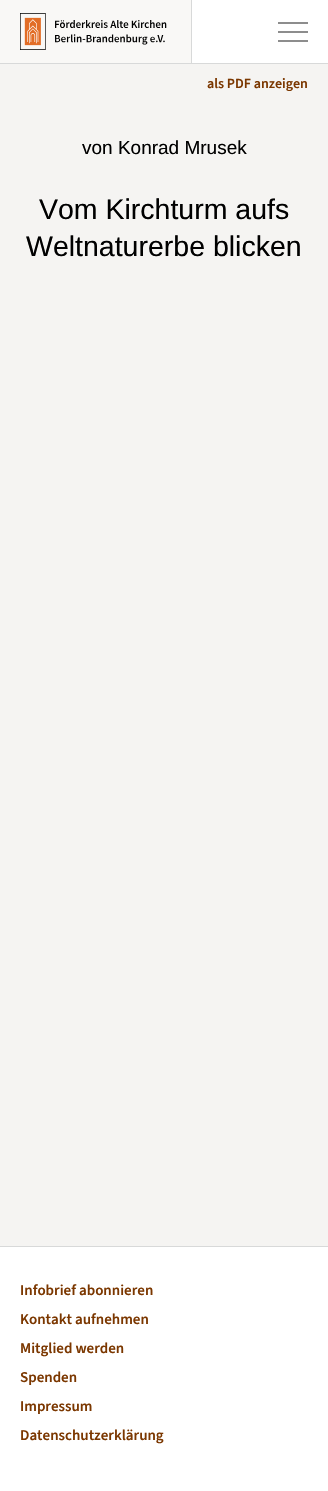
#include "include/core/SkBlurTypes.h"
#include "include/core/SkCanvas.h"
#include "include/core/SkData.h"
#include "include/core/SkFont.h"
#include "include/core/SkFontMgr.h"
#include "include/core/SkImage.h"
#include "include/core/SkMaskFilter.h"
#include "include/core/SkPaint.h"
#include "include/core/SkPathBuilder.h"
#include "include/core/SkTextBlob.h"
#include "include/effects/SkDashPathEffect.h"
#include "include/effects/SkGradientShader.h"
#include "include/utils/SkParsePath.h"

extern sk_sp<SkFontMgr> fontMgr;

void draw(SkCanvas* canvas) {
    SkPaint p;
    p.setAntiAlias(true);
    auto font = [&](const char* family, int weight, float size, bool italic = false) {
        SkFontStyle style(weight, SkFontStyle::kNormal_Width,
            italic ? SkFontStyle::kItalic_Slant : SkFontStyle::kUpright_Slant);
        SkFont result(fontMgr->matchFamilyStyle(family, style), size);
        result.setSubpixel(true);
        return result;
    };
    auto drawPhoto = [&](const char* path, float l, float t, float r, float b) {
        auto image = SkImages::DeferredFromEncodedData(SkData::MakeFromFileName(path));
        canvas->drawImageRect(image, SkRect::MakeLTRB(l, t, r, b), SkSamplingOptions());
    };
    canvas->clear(0xFFF5F4F2);
    {
        const struct { float l, t, r, b; SkColor color; } items[] = {
            {192, 0, 328, 63, 0xFFFFFFFF},
            {0, 63, 328, 64, 0xFFD8D9D9},
            {0, 0, 191, 63, 0xFFF9F8F6},
            {191, 0, 192, 63, 0xFFD8D9D9},
        };
        for (auto [l, t, r, b, color] : items) {
            p.setColor(color);
            canvas->drawRect(SkRect::MakeLTRB(l, t, r, b), p);
        }
    }
    drawPhoto("media/1.png", 20, 13, 167, 50);
    {
        const struct { float l, t, r, b; SkColor color; } items[] = {
            {278, 22, 308, 24, 0xFF8D8D8D},
            {278, 31, 308, 33, 0xFF8D8D8D},
            {278, 40, 308, 42, 0xFF8D8D8D},
        };
        for (auto [l, t, r, b, color] : items) {
            p.setColor(color);
            canvas->drawRect(SkRect::MakeLTRB(l, t, r, b), p);
        }
    }
    auto font1 = font("Source Sans 3", 600, 14);
    p.setColor(0xFF7B3700);
    canvas->drawString("als PDF anzeigen", 207, 88, font1, p);
    auto font2 = font("Liberation Sans", 400, 19);
    p.setColor(0xFF000000);
    canvas->drawString("von Konrad Mrusek", 82, 154, font2, p);
    auto font3 = font("Liberation Sans", 400, 28.5f);
    canvas->drawString("Vom Kirchturm aufs", 39, 219, font3, p);
    canvas->drawString("Weltnaturerbe blicken", 26, 256, font3, p);
    p.setColor(0xFFFFFFFF);
    canvas->drawRect(SkRect::MakeLTRB(0, 1247, 328, 1491), p);
    p.setColor(0xFFD8D9D9);
    canvas->drawRect(SkRect::MakeLTRB(0, 1246, 328, 1247), p);
    auto font4 = font("Source Sans 3", 600, 15);
    p.setColor(0xFF7B3700);
    {
        const struct { const char* s; float x, y; } items[] = {
            {"Infobrief abonnieren", 20, 1295},
            {"Kontakt aufnehmen", 20, 1324},
            {"Mitglied werden", 20, 1353},
            {"Spenden", 20, 1382},
            {"Impressum", 20, 1411},
            {"Datenschutzerklärung", 20, 1440},
        };
        for (auto [s, x, y] : items) {
            canvas->drawString(s, x, y, font4, p);
        }
    }
}
